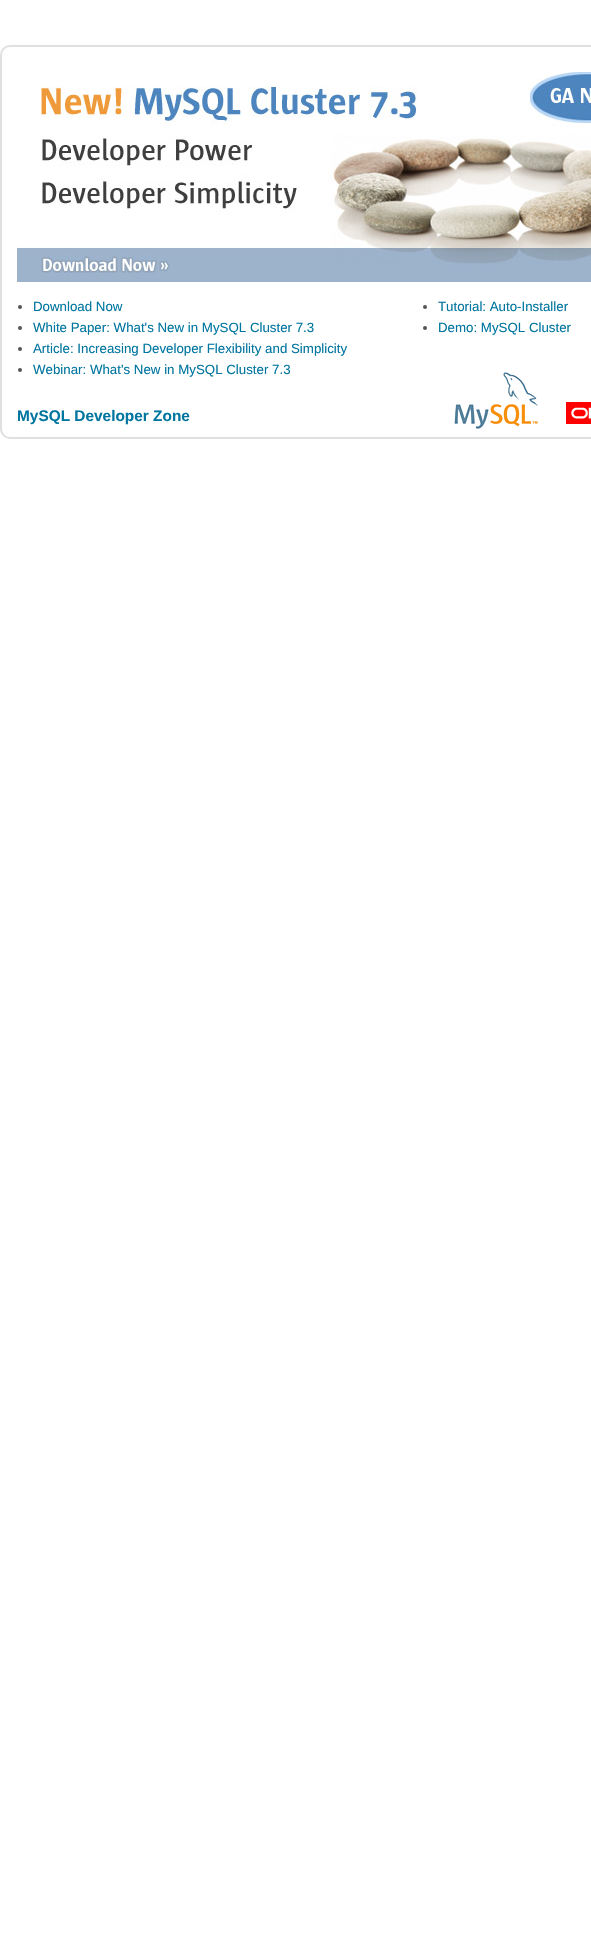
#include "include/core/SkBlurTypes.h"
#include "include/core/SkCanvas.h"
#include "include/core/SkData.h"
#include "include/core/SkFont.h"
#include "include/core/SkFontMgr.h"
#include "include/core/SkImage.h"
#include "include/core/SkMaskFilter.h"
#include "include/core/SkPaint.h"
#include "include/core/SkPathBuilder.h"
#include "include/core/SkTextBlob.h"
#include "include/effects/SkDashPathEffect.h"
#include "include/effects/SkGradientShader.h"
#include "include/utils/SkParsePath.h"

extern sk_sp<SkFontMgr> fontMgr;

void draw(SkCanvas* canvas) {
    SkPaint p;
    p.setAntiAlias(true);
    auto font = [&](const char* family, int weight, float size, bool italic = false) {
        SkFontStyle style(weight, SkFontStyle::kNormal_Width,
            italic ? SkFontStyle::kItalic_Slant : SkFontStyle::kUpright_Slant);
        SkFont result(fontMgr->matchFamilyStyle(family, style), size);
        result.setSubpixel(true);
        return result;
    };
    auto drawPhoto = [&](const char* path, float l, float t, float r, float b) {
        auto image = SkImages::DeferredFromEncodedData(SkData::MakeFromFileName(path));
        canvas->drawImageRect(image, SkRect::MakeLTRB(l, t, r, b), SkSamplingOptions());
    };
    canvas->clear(0xFFFFFFFF);
    p.setStyle(SkPaint::kStroke_Style);
    p.setStrokeWidth(2);
    p.setColor(0xFFE0E0E0);
    canvas->drawRoundRect(SkRect::MakeLTRB(1, 46, 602, 438), 9, 9, p);
    drawPhoto("media/1.png", 17, 71, 591, 282);
    p.setStyle(SkPaint::kFill_Style);
    p.setColor(0xFF555555);
    canvas->drawCircle(20, 307, 2, p);
    auto font1 = font("Liberation Sans", 400, 13.3f);
    p.setColor(0xFF00759F);
    canvas->drawString("Download Now", 33, 311, font1, p);
    p.setColor(0xFF555555);
    canvas->drawCircle(20, 328, 2, p);
    p.setColor(0xFF00759F);
    canvas->drawString("White Paper: What's New in MySQL Cluster 7.3", 33, 332, font1, p);
    p.setColor(0xFF555555);
    canvas->drawCircle(20, 349, 2, p);
    p.setColor(0xFF00759F);
    canvas->drawString("Article: Increasing Developer Flexibility and Simplicity", 33, 353, font1, p);
    p.setColor(0xFF555555);
    canvas->drawCircle(20, 370, 2, p);
    p.setColor(0xFF00759F);
    canvas->drawString("Webinar: What's New in MySQL Cluster 7.3", 33, 374, font1, p);
    auto font2 = font("Liberation Sans", 700, 15.4f);
    canvas->drawString("MySQL Developer Zone", 17, 421, font2, p);
    p.setColor(0xFF555555);
    canvas->drawCircle(425, 307, 2, p);
    p.setColor(0xFF00759F);
    canvas->drawString("Tutorial: Auto-Installer", 438, 311, font1, p);
    p.setColor(0xFF555555);
    canvas->drawCircle(425, 328, 2, p);
    p.setColor(0xFF00759F);
    canvas->drawString("Demo: MySQL Cluster", 438, 332, font1, p);
    drawPhoto("media/2.png", 454, 372, 538, 429);
    drawPhoto("media/3.png", 566, 402, 591, 424);
}
